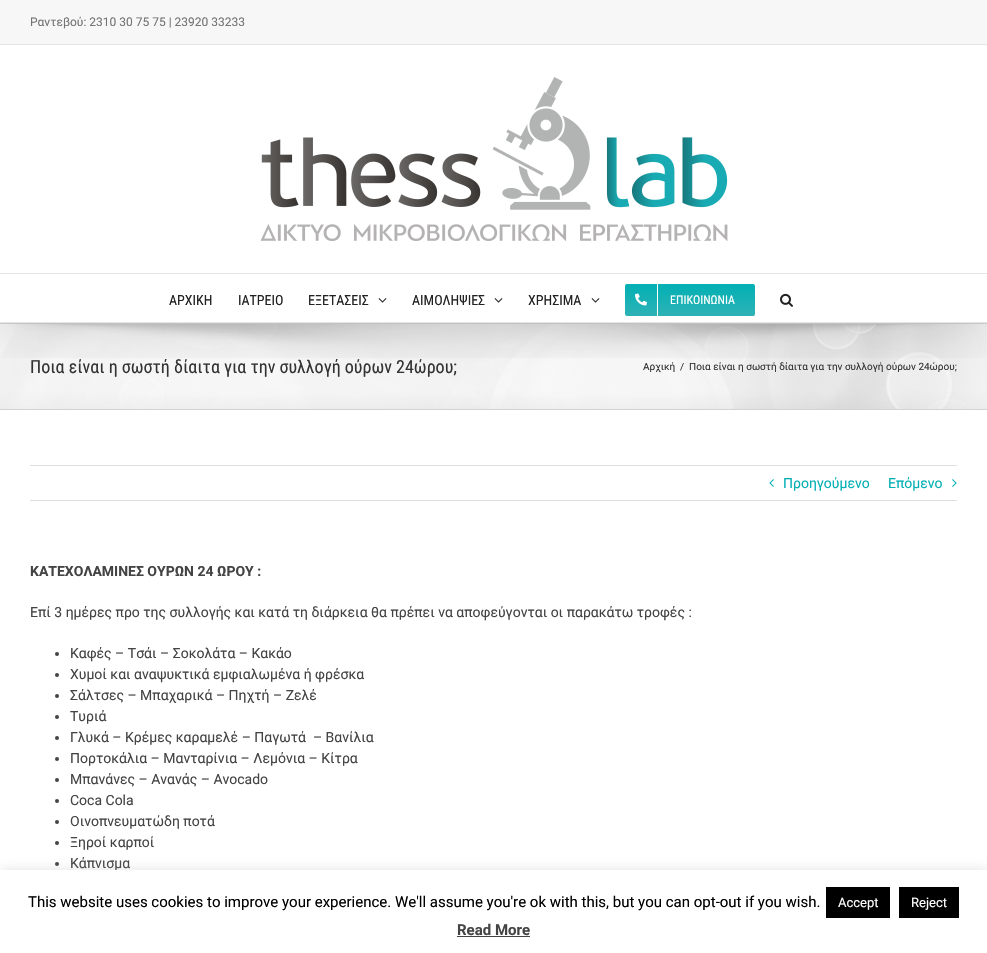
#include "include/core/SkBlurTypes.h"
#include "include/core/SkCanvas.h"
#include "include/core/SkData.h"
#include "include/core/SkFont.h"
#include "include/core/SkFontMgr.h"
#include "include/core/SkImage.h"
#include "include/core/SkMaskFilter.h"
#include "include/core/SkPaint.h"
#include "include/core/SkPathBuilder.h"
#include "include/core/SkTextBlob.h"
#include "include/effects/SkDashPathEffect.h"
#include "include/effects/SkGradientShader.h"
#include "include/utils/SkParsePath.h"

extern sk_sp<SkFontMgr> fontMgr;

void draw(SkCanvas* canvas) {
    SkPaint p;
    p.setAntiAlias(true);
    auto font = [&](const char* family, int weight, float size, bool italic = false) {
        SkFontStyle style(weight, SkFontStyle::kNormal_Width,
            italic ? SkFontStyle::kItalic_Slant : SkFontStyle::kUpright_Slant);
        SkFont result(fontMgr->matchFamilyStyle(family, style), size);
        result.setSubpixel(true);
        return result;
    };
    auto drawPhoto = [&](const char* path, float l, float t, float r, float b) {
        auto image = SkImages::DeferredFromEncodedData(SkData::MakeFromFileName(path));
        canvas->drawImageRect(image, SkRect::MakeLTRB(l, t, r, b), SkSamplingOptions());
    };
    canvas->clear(0xFFF7F7F7);
    drawPhoto("media/5.png", 0, 324, 987, 409);
    p.setColor(0xFFD2D3D4);
    canvas->drawRect(SkRect::MakeLTRB(0, 323, 987, 324), p);
    canvas->save();
    canvas->clipRect(SkRect::MakeLTRB(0, 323, 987, 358));
    p.setColor(0x24000000);
    p.setMaskFilter(SkMaskFilter::MakeBlur(kNormal_SkBlurStyle, 25));
    canvas->drawRect(SkRect::MakeLTRB(2, 12, 985, 331), p);
    p.setMaskFilter(nullptr);
    canvas->restore();
    p.setColor(0xFFE5E5E5);
    canvas->drawRect(SkRect::MakeLTRB(0, 44, 987, 45), p);
    auto font1 = font("Roboto", 400, 12);
    p.setColor(0xFF747474);
    canvas->drawString("Ραντεβού: 2310 30 75 75 | 23920 33233", 30, 26, font1, p);
    p.setColor(0xFFFFFFFF);
    canvas->drawRect(SkRect::MakeLTRB(0, 45, 987, 273), p);
    p.setColor(0xFFE5E5E5);
    canvas->drawRect(SkRect::MakeLTRB(0, 273, 987, 274), p);
    drawPhoto("media/1.png", 260, 77, 728, 241);
    p.setColor(0xFFFFFFFF);
    canvas->drawRect(SkRect::MakeLTRB(0, 274, 987, 322), p);
    p.setColor(0xFFE5E5E5);
    canvas->drawRect(SkRect::MakeLTRB(0, 322, 987, 323), p);
    auto font2 = font("Roboto Condensed", 400, 14);
    p.setColor(0xFF222222);
    {
        const struct { const char* s; float x, y; } items[] = {
            {"ΑΡΧΙΚΗ", 169, 305},
            {"ΙΑΤΡΕΙΟ", 238, 305},
            {"ΕΞΕΤΑΣΕΙΣ", 308, 305},
        };
        for (auto [s, x, y] : items) {
            canvas->drawString(s, x, y, font2, p);
        }
    }
    drawPhoto("media/2.png", 378, 298, 387, 303);
    canvas->drawString("ΑΙΜΟΛΗΨΙΕΣ", 412, 305, font2, p);
    drawPhoto("media/2.png", 494, 298, 503, 303);
    canvas->drawString("ΧΡΗΣΙΜΑ", 528, 305, font2, p);
    drawPhoto("media/2.png", 591, 298, 600, 303);
    {
        const SkColor colors[] = {0xFF02B0B4, 0xFF2DB2B5};
        const float stops[] = {0, 1};
        const SkPoint ends[] = {{690, 284}, {690, 316}};
        p.setShader(SkGradientShader::MakeLinear(ends, colors, stops, 2, SkTileMode::kClamp));
        p.setAlpha(255);
    }
    canvas->drawRoundRect(SkRect::MakeLTRB(625, 284, 755, 316), 2, 2, p);
    p.setShader(nullptr);
    p.setColor(0xFFFFFFFF);
    canvas->drawRect(SkRect::MakeLTRB(657, 284, 658, 316), p);
    drawPhoto("media/3.png", 635, 293, 647, 306);
    auto font3 = font("Roboto Condensed", 400, 12);
    canvas->drawString("ΕΠΙΚΟΙΝΩΝΙΑ", 670, 304, font3, p);
    drawPhoto("media/4.png", 780, 293, 793, 307);
    p.setColor(0xFFD2D3D4);
    canvas->drawRect(SkRect::MakeLTRB(0, 409, 987, 410), p);
    auto font4 = font("Roboto Condensed", 400, 18);
    p.setColor(0xFF333333);
    canvas->drawString("Ποια είναι η σωστή δίαιτα για την συλλογή ούρων 24ώρου;", 30, 373, font4, p);
    auto font5 = font("Roboto", 400, 10);
    {
        const struct { const char* s; float x, y; } items[] = {
            {"Αρχική", 643, 370},
            {"/", 680, 370},
            {"Ποια είναι η σωστή δίαιτα για την συλλογή ούρων 24ώρου;", 689, 370},
        };
        for (auto [s, x, y] : items) {
            canvas->drawString(s, x, y, font5, p);
        }
    }
    {
        const struct { float l, t, r, b; SkColor color; } items[] = {
            {0, 410, 987, 870, 0xFFFFFFFF},
            {30, 465, 957, 466, 0xFFE0DEDE},
            {30, 500, 957, 501, 0xFFE0DEDE},
        };
        for (auto [l, t, r, b, color] : items) {
            p.setColor(color);
            canvas->drawRect(SkRect::MakeLTRB(l, t, r, b), p);
        }
    }
    drawPhoto("media/6.png", 769, 479, 774, 487);
    auto font6 = font("Roboto", 400, 14);
    p.setColor(0xFF02B0B4);
    canvas->drawString("Προηγούμενο", 783, 488, font6, p);
    canvas->drawString("Επόμενο", 888, 488, font6, p);
    drawPhoto("media/7.png", 952, 479, 957, 487);
    auto font7 = font("Roboto", 700, 14);
    p.setColor(0xFF444444);
    canvas->drawString("ΚΑΤΕΧΟΛΑΜΙΝΕΣ ΟΥΡΩΝ 24 ΩΡΟΥ :", 30, 576, font7, p);
    canvas->drawString("Επί 3 ημέρες προ της συλλογής και κατά τη διάρκεια θα πρέπει να αποφεύγονται οι παρακάτω τροφές :", 30, 617, font6, p);
    canvas->drawCircle(57, 654, 2, p);
    canvas->drawString("Καφές – Τσάι – Σοκολάτα – Κακάο", 70, 658, font6, p);
    canvas->drawCircle(57, 675, 2, p);
    canvas->drawString("Χυμοί και αναψυκτικά εμφιαλωμένα ή φρέσκα", 70, 679, font6, p);
    canvas->drawCircle(57, 696, 2, p);
    canvas->drawString("Σάλτσες – Μπαχαρικά – Πηχτή – Ζελέ", 70, 700, font6, p);
    canvas->drawCircle(57, 717, 2, p);
    canvas->drawString("Τυριά", 70, 721, font6, p);
    canvas->drawCircle(57, 738, 2, p);
    canvas->drawString("Γλυκά – Κρέμες καραμελέ – Παγωτά  – Βανίλια", 70, 742, font6, p);
    canvas->drawCircle(57, 759, 2, p);
    canvas->drawString("Πορτοκάλια – Μανταρίνια – Λεμόνια – Κίτρα", 70, 763, font6, p);
    canvas->drawCircle(57, 780, 2, p);
    canvas->drawString("Μπανάνες – Ανανάς – Avocado", 70, 784, font6, p);
    canvas->drawCircle(57, 801, 2, p);
    canvas->drawString("Coca Cola", 70, 805, font6, p);
    canvas->drawCircle(57, 822, 2, p);
    canvas->drawString("Οινοπνευματώδη ποτά", 70, 826, font6, p);
    canvas->drawCircle(57, 843, 2, p);
    canvas->drawString("Ξηροί καρποί", 70, 847, font6, p);
    canvas->drawCircle(57, 864, 2, p);
    canvas->drawString("Κάπνισμα", 70, 868, font6, p);
    p.setColor(0x4DACABAB);
    p.setMaskFilter(SkMaskFilter::MakeBlur(kNormal_SkBlurStyle, 5));
    canvas->drawRect(SkRect::MakeLTRB(0, 869, 987, 952), p);
    p.setMaskFilter(nullptr);
    p.setColor(0xFFFFFFFF);
    canvas->drawRect(SkRect::MakeLTRB(0, 870, 987, 953), p);
    auto font8 = font("Roboto", 400, 15);
    p.setColor(0xFF000000);
    canvas->drawString("This website uses cookies to improve your experience. We'll assume you're ok with this, but you can opt-out if you wish.", 28, 907, font8, p);
    canvas->drawRect(SkRect::MakeLTRB(826, 887, 890, 918), p);
    auto font9 = font("Roboto", 400, 13);
    p.setColor(0xFFFFFFFF);
    canvas->drawString("Accept", 838, 907, font9, p);
    p.setColor(0xFF000000);
    canvas->drawRect(SkRect::MakeLTRB(899, 887, 959, 918), p);
    p.setColor(0xFFFFFFFF);
    canvas->drawString("Reject", 911, 907, font9, p);
    auto font10 = font("Roboto", 700, 15);
    p.setColor(0xFF444444);
    canvas->drawString("Read More", 457, 935, font10, p);
    canvas->drawRect(SkRect::MakeLTRB(457, 936, 530, 937), p);
}
